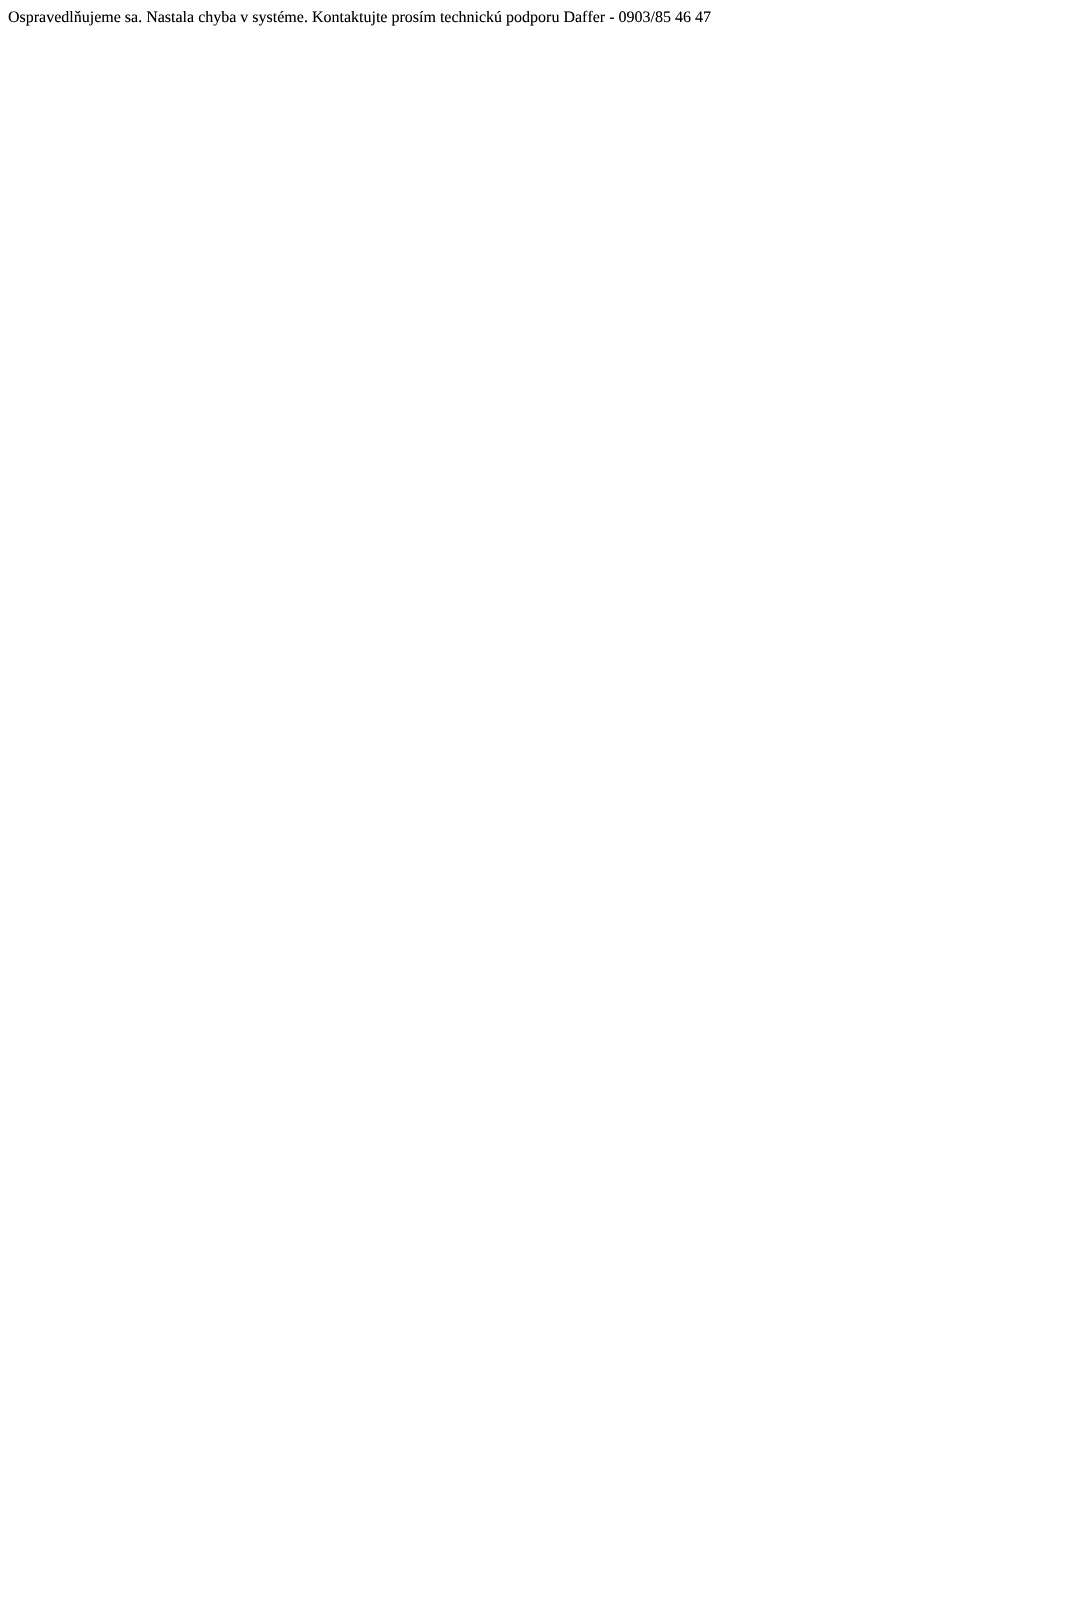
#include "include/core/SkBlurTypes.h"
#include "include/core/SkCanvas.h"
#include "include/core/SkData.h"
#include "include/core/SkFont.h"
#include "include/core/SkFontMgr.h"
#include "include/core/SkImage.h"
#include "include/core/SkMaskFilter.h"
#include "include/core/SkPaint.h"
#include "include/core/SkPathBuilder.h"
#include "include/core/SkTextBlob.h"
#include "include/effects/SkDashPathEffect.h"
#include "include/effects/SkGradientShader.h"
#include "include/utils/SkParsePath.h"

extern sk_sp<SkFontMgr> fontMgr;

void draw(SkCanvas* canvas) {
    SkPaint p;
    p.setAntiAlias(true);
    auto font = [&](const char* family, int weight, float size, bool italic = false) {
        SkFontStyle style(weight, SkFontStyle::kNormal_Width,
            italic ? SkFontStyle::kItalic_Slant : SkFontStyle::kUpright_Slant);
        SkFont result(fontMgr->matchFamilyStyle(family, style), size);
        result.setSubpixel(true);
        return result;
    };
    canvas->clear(0xFFFFFFFF);
    auto font1 = font("Liberation Serif", 400, 16);
    p.setColor(0xFF000000);
    canvas->drawString("Ospravedlňujeme sa. Nastala chyba v systéme. Kontaktujte prosím technickú podporu Daffer - 0903/85 46 47", 8, 22, font1, p);
}
